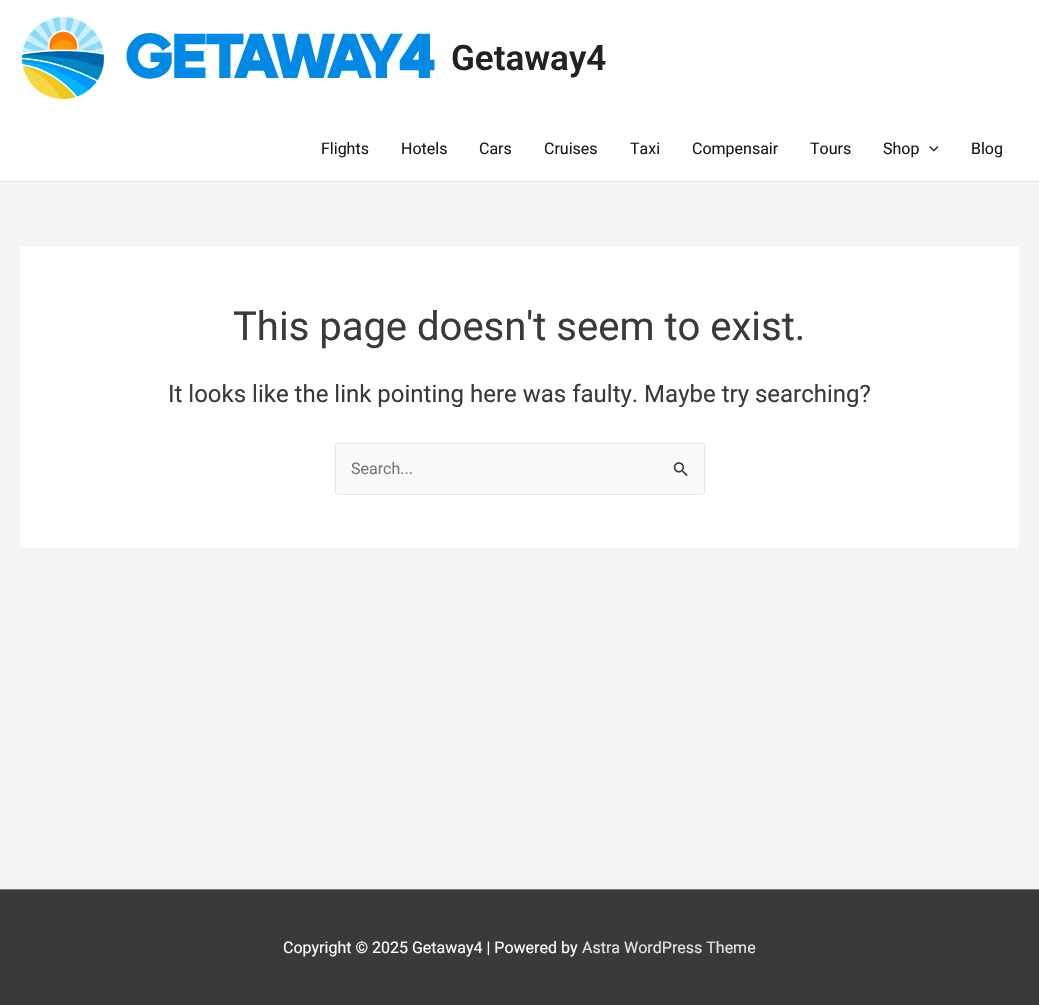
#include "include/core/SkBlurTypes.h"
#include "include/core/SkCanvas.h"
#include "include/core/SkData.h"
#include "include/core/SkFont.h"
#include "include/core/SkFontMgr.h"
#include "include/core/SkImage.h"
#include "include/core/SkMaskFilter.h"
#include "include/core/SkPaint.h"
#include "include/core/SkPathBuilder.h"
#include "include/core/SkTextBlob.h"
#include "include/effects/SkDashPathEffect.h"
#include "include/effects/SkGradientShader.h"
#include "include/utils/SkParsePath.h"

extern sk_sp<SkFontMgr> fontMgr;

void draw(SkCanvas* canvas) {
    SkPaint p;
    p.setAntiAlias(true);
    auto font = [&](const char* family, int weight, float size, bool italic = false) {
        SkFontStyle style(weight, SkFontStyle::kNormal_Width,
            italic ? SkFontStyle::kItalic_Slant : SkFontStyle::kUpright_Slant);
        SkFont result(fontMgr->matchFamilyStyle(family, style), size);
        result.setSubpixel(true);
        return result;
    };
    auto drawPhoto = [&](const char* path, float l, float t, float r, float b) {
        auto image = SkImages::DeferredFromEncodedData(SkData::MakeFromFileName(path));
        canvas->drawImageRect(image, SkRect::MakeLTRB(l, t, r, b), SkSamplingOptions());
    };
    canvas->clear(0xFFF5F5F5);
    p.setColor(0xFFFFFFFF);
    canvas->drawRect(SkRect::MakeLTRB(0, 0, 1039, 181), p);
    p.setColor(0xFFE5E5E5);
    canvas->drawRect(SkRect::MakeLTRB(0, 181, 1039, 182), p);
    drawPhoto("media/1.png", 22, 17, 435, 99);
    auto font1 = font("Roboto", 600, 35);
    p.setColor(0xFF222222);
    canvas->drawString("Getaway4", 451, 70, font1, p);
    auto font2 = font("Roboto", 400, 16);
    p.setColor(0xFF191919);
    {
        const struct { const char* s; float x, y; } items[] = {
            {"Flights", 321, 154},
            {"Hotels", 401, 154},
            {"Cars", 479, 154},
            {"Cruises", 544, 154},
            {"Taxi", 630, 154},
            {"Compensair", 692, 154},
            {"Tours", 810, 154},
            {"Shop", 883, 154},
        };
        for (auto [s, x, y] : items) {
            canvas->drawString(s, x, y, font2, p);
        }
    }
    drawPhoto("media/2.png", 929, 146, 939, 152);
    canvas->drawString("Blog", 971, 154, font2, p);
    p.setColor(0xFFFFFFFF);
    canvas->drawRect(SkRect::MakeLTRB(20, 246, 1019, 548), p);
    auto font3 = font("Roboto", 400, 40);
    p.setColor(0xFF3A3A3A);
    canvas->drawString("This page doesn't seem to exist.", 233, 340, font3, p);
    auto font4 = font("Roboto", 400, 24);
    canvas->drawString("It looks like the link pointing here was faulty. Maybe try searching?", 168, 402, font4, p);
    p.setColor(0xFFFAFAFA);
    canvas->drawRoundRect(SkRect::MakeLTRB(335.5f, 443.5f, 704.5f, 494.5f), 1.5f, 1.5f, p);
    p.setStyle(SkPaint::kStroke_Style);
    p.setStrokeWidth(1);
    p.setColor(0xFFE5E5E5);
    canvas->drawRoundRect(SkRect::MakeLTRB(335.5f, 443.5f, 704.5f, 494.5f), 1.5f, 1.5f, p);
    p.setStyle(SkPaint::kFill_Style);
    p.setColor(0xFF757575);
    canvas->drawString("Search...", 351, 474, font2, p);
    drawPhoto("media/3.png", 673, 462, 688, 477);
    p.setColor(0xFF7A7A7A);
    canvas->drawRect(SkRect::MakeLTRB(0, 889, 1039, 890), p);
    p.setColor(0xFF3A3A3A);
    canvas->drawRect(SkRect::MakeLTRB(0, 890, 1039, 1005), p);
    p.setColor(0xFFFFFFFF);
    canvas->drawString("Copyright © 2025 Getaway4 | Powered by", 283, 953, font2, p);
    p.setColor(0xFFE5E5E5);
    canvas->drawString("Astra WordPress Theme", 582, 953, font2, p);
}
